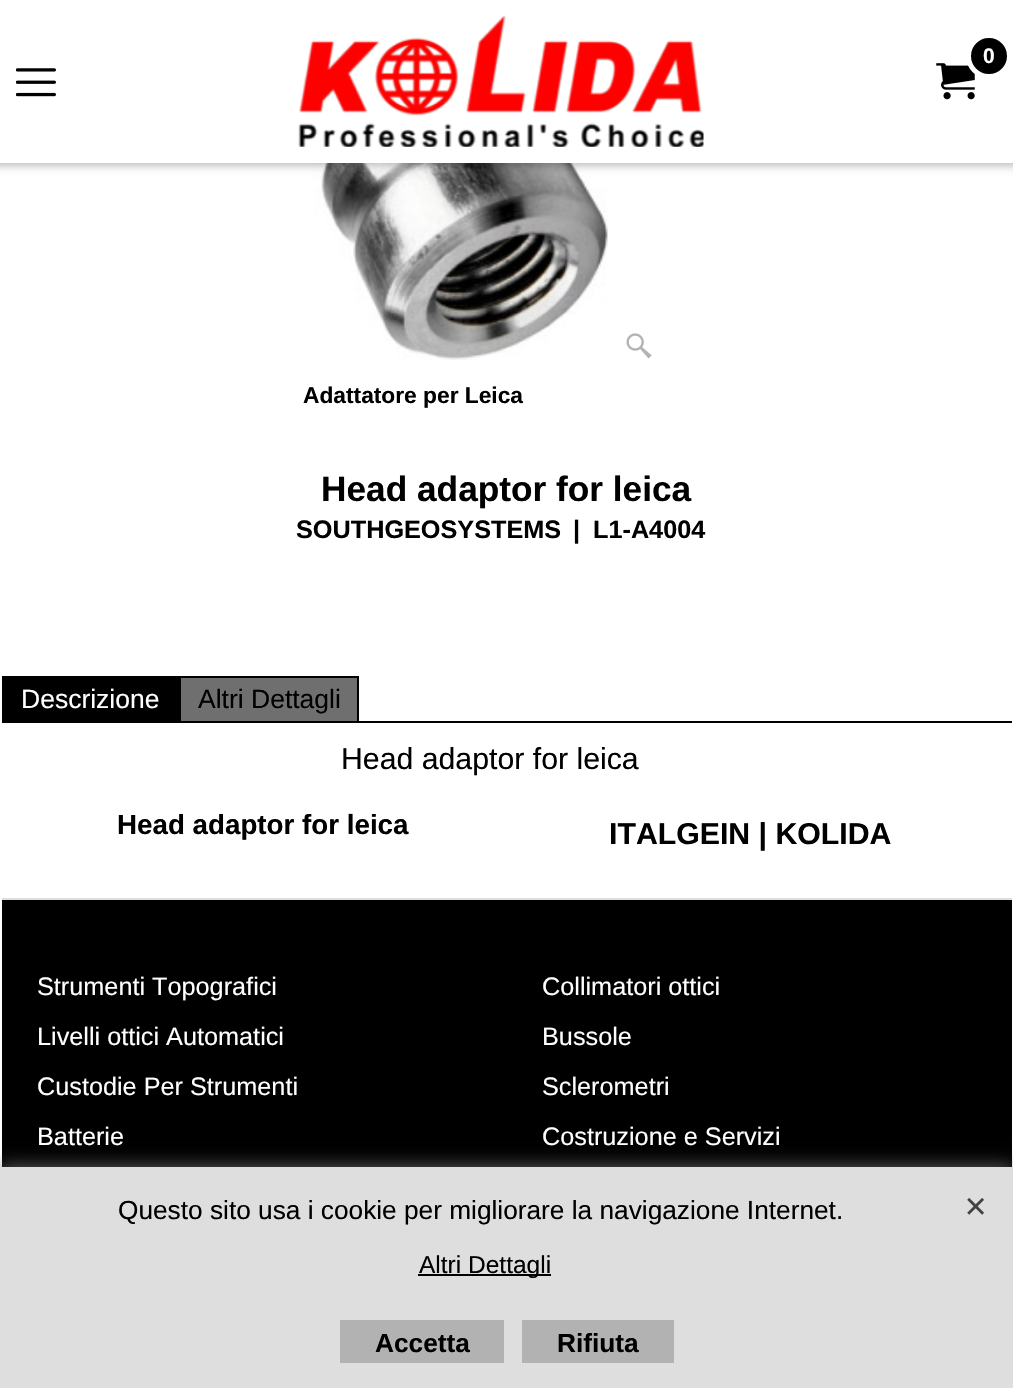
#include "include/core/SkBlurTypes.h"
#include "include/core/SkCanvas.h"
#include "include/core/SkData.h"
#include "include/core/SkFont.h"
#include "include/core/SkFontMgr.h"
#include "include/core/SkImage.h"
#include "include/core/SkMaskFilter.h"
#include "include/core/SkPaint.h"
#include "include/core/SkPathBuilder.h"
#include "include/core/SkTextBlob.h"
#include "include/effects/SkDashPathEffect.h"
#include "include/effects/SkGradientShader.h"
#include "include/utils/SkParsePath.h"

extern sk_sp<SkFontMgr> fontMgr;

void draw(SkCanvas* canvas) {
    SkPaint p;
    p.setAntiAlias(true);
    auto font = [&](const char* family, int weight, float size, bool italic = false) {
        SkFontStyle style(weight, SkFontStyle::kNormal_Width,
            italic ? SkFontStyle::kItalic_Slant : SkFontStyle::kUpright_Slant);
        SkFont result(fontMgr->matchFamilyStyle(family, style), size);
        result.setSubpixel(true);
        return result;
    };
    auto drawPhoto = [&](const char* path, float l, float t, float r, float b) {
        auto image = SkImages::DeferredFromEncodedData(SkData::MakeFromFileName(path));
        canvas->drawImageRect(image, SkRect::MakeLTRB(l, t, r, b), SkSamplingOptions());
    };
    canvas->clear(0xFFFFFFFF);
    drawPhoto("media/4.png", 288, 163, 608, 360);
    p.setColor(0x4D000000);
    p.setMaskFilter(SkMaskFilter::MakeBlur(kNormal_SkBlurStyle, 4.5f));
    canvas->drawRect(SkRect::MakeLTRB(-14, -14, 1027, 165), p);
    p.setMaskFilter(nullptr);
    p.setColor(0xFFFFFFFF);
    canvas->drawRect(SkRect::MakeLTRB(0, 0, 1013, 163), p);
    drawPhoto("media/1.png", 298, 15, 704, 147);
    drawPhoto("media/2.png", 936, 63, 975, 100);
    p.setColor(0xFF000000);
    canvas->drawCircle(989, 56, 20.5f, p);
    p.setStyle(SkPaint::kStroke_Style);
    p.setStrokeWidth(5);
    p.setColor(0xFFFFFFFF);
    canvas->drawCircle(989, 56, 20.5f, p);
    auto font1 = font("Liberation Sans", 700, 21);
    p.setStyle(SkPaint::kFill_Style);
    canvas->drawString("0", 983, 63, font1, p);
    drawPhoto("media/3.png", 16, 68, 56, 97);
    drawPhoto("media/5.png", 626, 333, 652, 359);
    auto font2 = font("Liberation Sans", 700, 22.75f);
    p.setColor(0xFF000000);
    canvas->drawString("Adattatore per Leica", 303, 403, font2, p);
    auto font3 = font("Liberation Sans", 700, 35.25f);
    canvas->drawString("Head adaptor for leica", 321, 501, font3, p);
    auto font4 = font("Liberation Sans", 700, 25.25f);
    {
        const struct { const char* s; float x, y; } items[] = {
            {"SOUTHGEOSYSTEMS", 296, 538},
            {"|", 573, 538},
            {"L1-A4004", 593, 538},
        };
        for (auto [s, x, y] : items) {
            canvas->drawString(s, x, y, font4, p);
        }
    }
    canvas->drawRect(SkRect::MakeLTRB(2, 676, 179, 723), p);
    auto font5 = font("Liberation Sans", 400, 26.5f);
    p.setColor(0xFFFFFFFF);
    canvas->drawString("Descrizione", 21, 708, font5, p);
    {
        const struct { float l, t, r, b; SkColor color; } items[] = {
            {181, 678, 357, 721, 0xFF6F6F6F},
            {179, 676, 359, 678, 0xFF000000},
            {357, 676, 359, 721, 0xFF000000},
            {179, 676, 181, 721, 0xFF000000},
        };
        for (auto [l, t, r, b, color] : items) {
            p.setColor(color);
            canvas->drawRect(SkRect::MakeLTRB(l, t, r, b), p);
        }
    }
    canvas->drawString("Altri Dettagli", 198, 708, font5, p);
    canvas->drawRect(SkRect::MakeLTRB(179, 721, 1012, 723), p);
    auto font6 = font("Liberation Sans", 400, 30.25f);
    canvas->drawString("Head adaptor for leica", 341, 769, font6, p);
    auto font7 = font("Liberation Sans", 700, 27.75f);
    canvas->drawString("Head adaptor for leica", 117, 834, font7, p);
    auto font8 = font("Liberation Sans", 700, 30.25f);
    canvas->drawString("ITALGEIN | KOLIDA", 609, 844, font8, p);
    p.setColor(0xFFDEDEDE);
    canvas->drawRect(SkRect::MakeLTRB(2, 898, 1012, 900), p);
    p.setColor(0xFF000000);
    canvas->drawRect(SkRect::MakeLTRB(2, 900, 1012, 1167), p);
    auto font9 = font("Liberation Sans", 400, 25.25f);
    p.setColor(0xFFFFFFFF);
    {
        const struct { const char* s; float x, y; } items[] = {
            {"Strumenti Topografici", 37, 995},
            {"Livelli ottici Automatici", 37, 1045},
            {"Custodie Per Strumenti", 37, 1095},
            {"Batterie", 37, 1145},
            {"Collimatori ottici", 542, 995},
            {"Bussole", 542, 1045},
            {"Sclerometri", 542, 1095},
            {"Costruzione e Servizi", 542, 1145},
        };
        for (auto [s, x, y] : items) {
            canvas->drawString(s, x, y, font9, p);
        }
    }
    p.setColor(0xFF666666);
    p.setMaskFilter(SkMaskFilter::MakeBlur(kNormal_SkBlurStyle, 9));
    canvas->drawRect(SkRect::MakeLTRB(0, 1167, 1013, 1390), p);
    p.setMaskFilter(nullptr);
    p.setColor(0xFFDEDEDE);
    canvas->drawRect(SkRect::MakeLTRB(0, 1167, 1013, 1388), p);
    auto font10 = font("Liberation Sans", 400, 26.25f);
    p.setColor(0xFF000000);
    canvas->drawString("Questo sito usa i cookie per migliorare la navigazione Internet.", 118, 1219, font10, p);
    canvas->drawRect(SkRect::MakeLTRB(418, 1274, 551, 1276), p);
    auto font11 = font("Liberation Sans", 400, 24.5f);
    canvas->drawString("Altri Dettagli", 419, 1273, font11, p);
    drawPhoto("media/6.png", 967, 1198, 984, 1215);
    p.setColor(0xFFB2B2B2);
    canvas->drawRect(SkRect::MakeLTRB(340, 1320, 504, 1363), p);
    auto font12 = font("Liberation Sans", 700, 26.25f);
    p.setColor(0xFF000000);
    canvas->drawString("Accetta", 375, 1352, font12, p);
    p.setColor(0xFFB2B2B2);
    canvas->drawRect(SkRect::MakeLTRB(522, 1320, 674, 1363), p);
    p.setColor(0xFF000000);
    canvas->drawString("Rifiuta", 557, 1352, font12, p);
}
